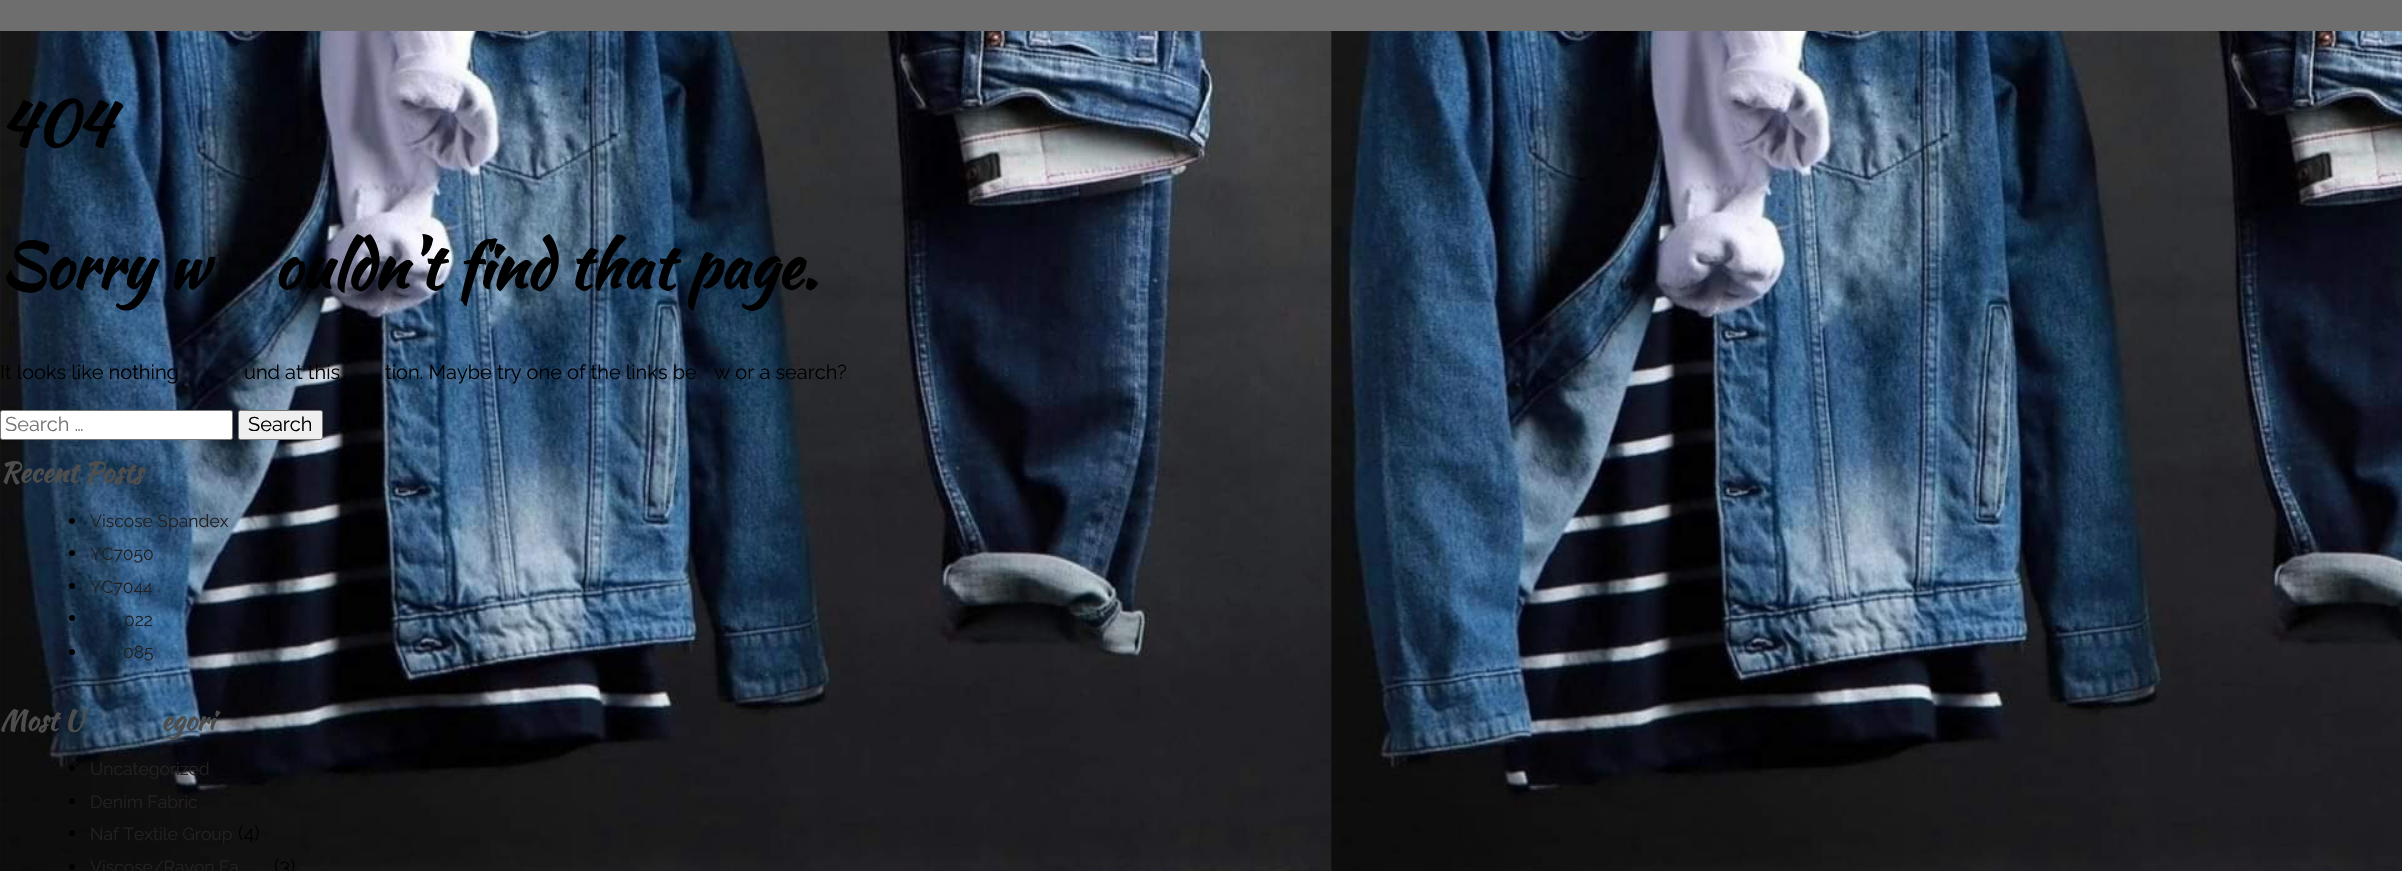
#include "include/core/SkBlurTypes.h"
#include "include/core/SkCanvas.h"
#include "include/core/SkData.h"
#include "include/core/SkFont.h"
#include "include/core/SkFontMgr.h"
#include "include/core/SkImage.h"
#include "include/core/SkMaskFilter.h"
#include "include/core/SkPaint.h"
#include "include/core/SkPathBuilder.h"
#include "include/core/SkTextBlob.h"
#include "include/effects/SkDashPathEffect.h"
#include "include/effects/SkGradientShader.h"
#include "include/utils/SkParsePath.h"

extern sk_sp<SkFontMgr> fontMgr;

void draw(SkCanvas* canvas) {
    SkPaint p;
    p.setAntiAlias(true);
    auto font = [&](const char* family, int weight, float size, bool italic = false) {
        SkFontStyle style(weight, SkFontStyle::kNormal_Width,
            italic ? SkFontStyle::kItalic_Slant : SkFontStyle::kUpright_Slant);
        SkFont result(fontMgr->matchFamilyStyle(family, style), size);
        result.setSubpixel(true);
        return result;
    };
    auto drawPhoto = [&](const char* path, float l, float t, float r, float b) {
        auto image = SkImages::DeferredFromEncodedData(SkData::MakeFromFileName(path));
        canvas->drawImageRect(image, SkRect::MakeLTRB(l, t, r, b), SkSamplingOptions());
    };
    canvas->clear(0xFFFFFFFF);
    drawPhoto("media/1.png", 0, 31, 2402, 871);
    p.setColor(0xFF6E6E6E);
    canvas->drawRect(SkRect::MakeLTRB(0, 0, 2402, 31), p);
    auto font1 = font("Kaushan Script", 700, 62.5f);
    p.setColor(0xFF000000);
    {
        const struct { const char* s; float x, y; } items[] = {
            {"404", 0, 146},
            {"Sorry w", 0, 288},
            {"ouldn't find that page.", 273, 288},
        };
        for (auto [s, x, y] : items) {
            canvas->drawString(s, x, y, font1, p);
        }
    }
    auto font2 = font("Raleway", 100, 20);
    {
        const struct { const char* s; float x, y; } items[] = {
            {"It looks like nothing", 0, 379},
            {"und at this", 244, 379},
            {"tion. Maybe try one of the links be", 385, 379},
            {"w or a search?", 714, 379},
        };
        for (auto [s, x, y] : items) {
            canvas->drawString(s, x, y, font2, p);
        }
    }
    p.setColor(0xFFFFFFFF);
    canvas->drawRoundRect(SkRect::MakeLTRB(0.5f, 410.5f, 232.5f, 439.5f), 2, 2, p);
    p.setStyle(SkPaint::kStroke_Style);
    p.setStrokeWidth(1);
    p.setColor(0xFF767676);
    canvas->drawRoundRect(SkRect::MakeLTRB(0.5f, 410.5f, 232.5f, 439.5f), 2, 2, p);
    p.setStyle(SkPaint::kFill_Style);
    p.setColor(0xFF757575);
    canvas->drawString("Search …", 5, 431, font2, p);
    p.setColor(0xFFEFEFEF);
    canvas->drawRoundRect(SkRect::MakeLTRB(238.5f, 410.5f, 322.5f, 439.5f), 2, 2, p);
    p.setStyle(SkPaint::kStroke_Style);
    p.setColor(0xFF767676);
    canvas->drawRoundRect(SkRect::MakeLTRB(238.5f, 410.5f, 322.5f, 439.5f), 2, 2, p);
    p.setStyle(SkPaint::kFill_Style);
    p.setColor(0xFF000000);
    canvas->drawString("Search", 248, 431, font2, p);
    auto font3 = font("Kaushan Script", 700, 27.5f);
    p.setColor(0xFF4D4D4D);
    canvas->drawString("Recent Posts", 0, 482, font3, p);
    p.setColor(0xFF000000);
    canvas->drawCircle(72, 521, 3, p);
    auto font4 = font("Raleway", 100, 17.5f);
    p.setColor(0xFF212121);
    canvas->drawString("Viscose Spandex", 90, 527, font4, p);
    p.setColor(0xFF000000);
    canvas->drawCircle(72, 553, 3, p);
    p.setColor(0xFF212121);
    canvas->drawString("YC7050", 90, 560, font4, p);
    p.setColor(0xFF000000);
    canvas->drawCircle(72, 586, 3, p);
    p.setColor(0xFF212121);
    canvas->drawString("YC7044", 90, 593, font4, p);
    p.setColor(0xFF000000);
    canvas->drawCircle(72, 618, 3, p);
    p.setColor(0xFF212121);
    canvas->drawString("022", 124, 626, font4, p);
    p.setColor(0xFF000000);
    canvas->drawCircle(72, 652, 3, p);
    p.setColor(0xFF212121);
    canvas->drawString("085", 123, 658, font4, p);
    p.setColor(0xFF4D4D4D);
    canvas->drawString("Most U", 0, 730, font3, p);
    canvas->drawString("egori", 161, 730, font3, p);
    p.setColor(0xFF000000);
    canvas->drawCircle(72, 768, 3, p);
    p.setColor(0xFF212121);
    canvas->drawString("Uncategorized", 90, 775, font4, p);
    p.setColor(0xFF000000);
    canvas->drawCircle(72, 801, 3, p);
    p.setColor(0xFF212121);
    canvas->drawString("Denim Fabric", 90, 808, font4, p);
    p.setColor(0xFF000000);
    canvas->drawCircle(72, 833, 3, p);
    p.setColor(0xFF212121);
    canvas->drawString("Naf Textile Group", 90, 840, font4, p);
    p.setColor(0xFF000000);
    canvas->drawString("(4)", 238, 840, font2, p);
    canvas->drawCircle(72, 867, 3, p);
    p.setColor(0xFF212121);
    canvas->drawString("Viscose/Rayon Fa", 90, 873, font4, p);
    p.setColor(0xFF000000);
    canvas->drawString("(3)", 274, 873, font2, p);
}
